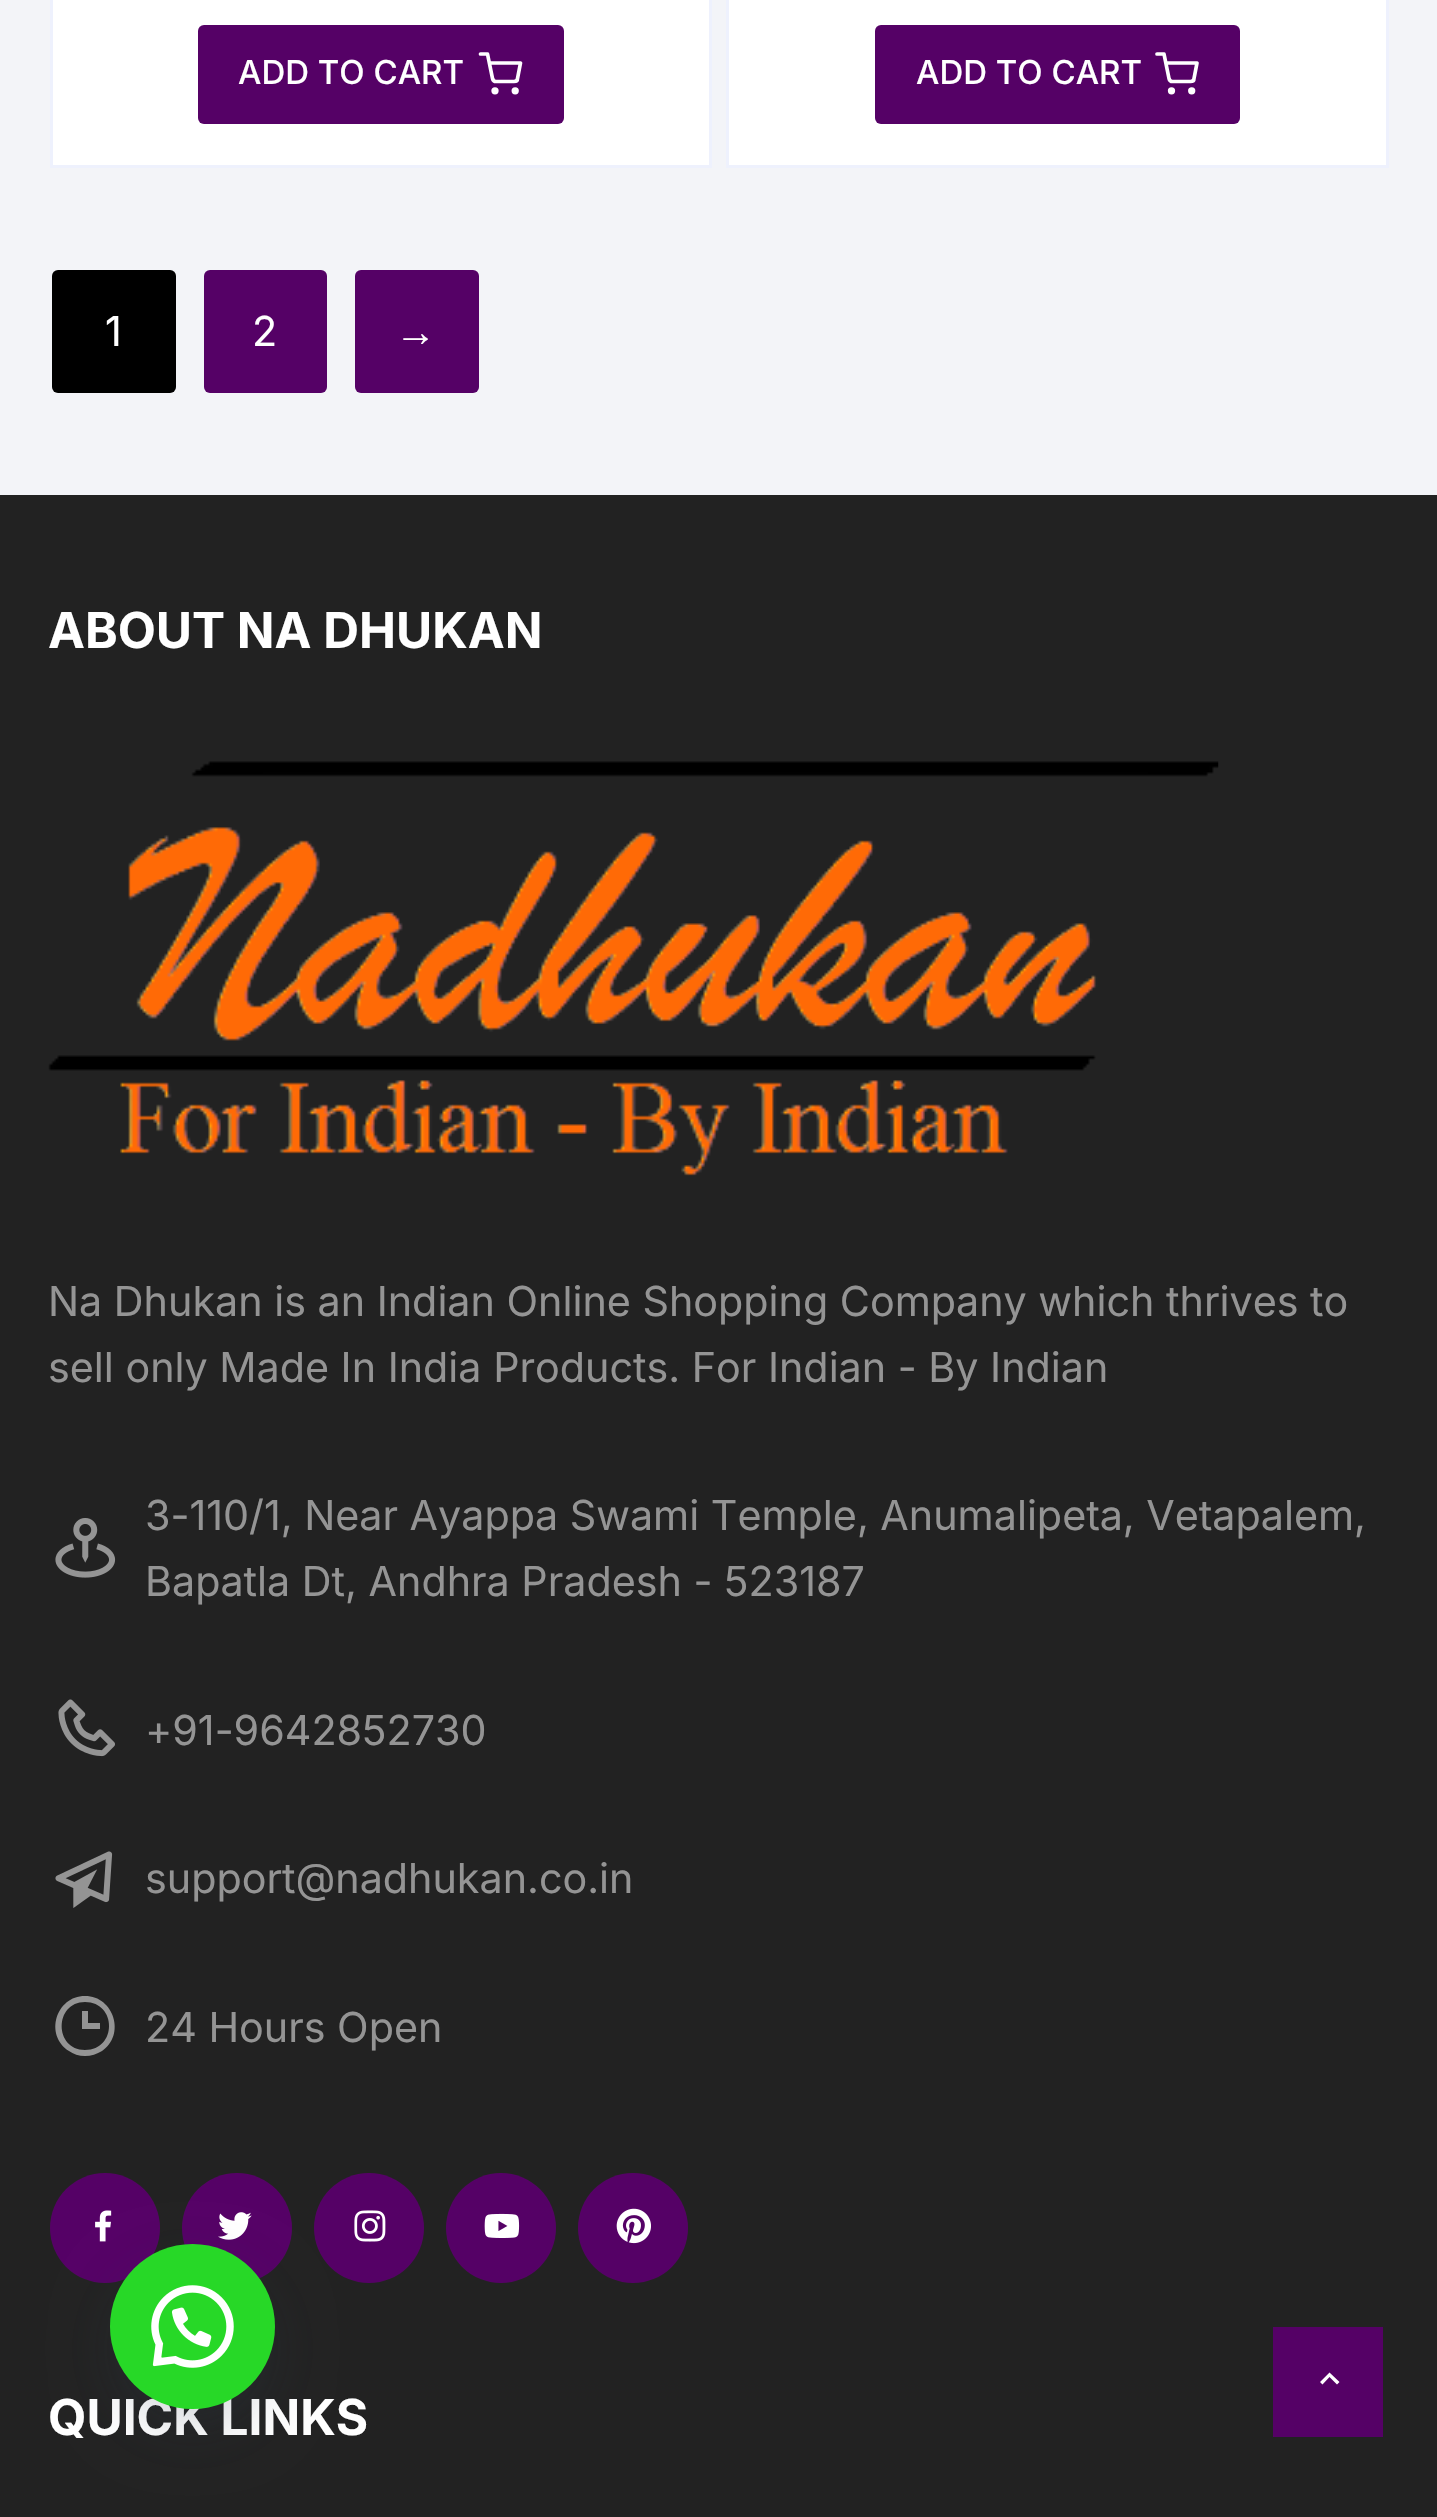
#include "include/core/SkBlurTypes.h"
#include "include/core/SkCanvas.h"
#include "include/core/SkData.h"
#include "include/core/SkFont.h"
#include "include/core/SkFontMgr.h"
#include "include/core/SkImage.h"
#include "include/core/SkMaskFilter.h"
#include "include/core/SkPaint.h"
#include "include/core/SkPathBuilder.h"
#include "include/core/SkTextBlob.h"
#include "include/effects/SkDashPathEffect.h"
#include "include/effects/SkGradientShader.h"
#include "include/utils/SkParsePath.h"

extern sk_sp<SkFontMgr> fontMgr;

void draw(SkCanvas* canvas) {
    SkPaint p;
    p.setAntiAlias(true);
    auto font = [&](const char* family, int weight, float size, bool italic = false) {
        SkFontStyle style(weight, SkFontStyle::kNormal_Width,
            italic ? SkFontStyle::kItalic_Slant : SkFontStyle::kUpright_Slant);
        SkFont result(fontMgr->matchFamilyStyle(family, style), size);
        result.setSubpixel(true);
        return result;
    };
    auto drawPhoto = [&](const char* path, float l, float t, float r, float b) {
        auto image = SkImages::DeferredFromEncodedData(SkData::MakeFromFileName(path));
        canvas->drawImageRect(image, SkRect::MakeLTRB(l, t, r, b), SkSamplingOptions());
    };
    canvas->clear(0xFFF3F4F8);
    p.setColor(0xFFFFFFFF);
    canvas->drawRect(SkRect::MakeLTRB(51.5f, -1.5f, 710.5f, 166.5f), p);
    p.setStyle(SkPaint::kStroke_Style);
    p.setStrokeWidth(3);
    p.setColor(0xFFEEF1FD);
    canvas->drawRect(SkRect::MakeLTRB(51.5f, -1.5f, 710.5f, 166.5f), p);
    p.setStyle(SkPaint::kFill_Style);
    p.setColor(0xFF550166);
    canvas->drawRoundRect(SkRect::MakeLTRB(198, 25, 564, 124), 6, 6, p);
    auto font1 = font("Inter", 500, 33);
    p.setColor(0xFFFFFFFF);
    canvas->drawString("ADD TO CART", 238, 84, font1, p);
    p.setStyle(SkPaint::kStroke_Style);
    p.setStrokeWidth(3.7f);
    canvas->drawCircle(495, 90.8f, 1.8f, p);
    canvas->drawCircle(515.2f, 90.8f, 1.8f, p);
    p.setStrokeCap(SkPaint::kRound_Cap);
    p.setStrokeJoin(SkPaint::kRound_Join);
    canvas->drawPath(SkPathBuilder().moveTo(480.5f, 54).lineTo(487.5f, 54).lineTo(492.5f, 78.5f).cubicTo(493, 80.5f, 494.5f, 81.5f, 496, 81.5f).lineTo(514, 81.5f).cubicTo(516, 81.5f, 517.5f, 80.5f, 517.5f, 78.5f).lineTo(520.5f, 63).lineTo(489.5f, 63).detach(), p);
    p.setStyle(SkPaint::kFill_Style);
    canvas->drawRect(SkRect::MakeLTRB(727.5f, -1.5f, 1387.5f, 166.5f), p);
    p.setStyle(SkPaint::kStroke_Style);
    p.setStrokeWidth(3);
    p.setStrokeCap(SkPaint::kButt_Cap);
    p.setStrokeJoin(SkPaint::kMiter_Join);
    p.setColor(0xFFEEF1FD);
    canvas->drawRect(SkRect::MakeLTRB(727.5f, -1.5f, 1387.5f, 166.5f), p);
    p.setStyle(SkPaint::kFill_Style);
    p.setColor(0xFF550166);
    canvas->drawRoundRect(SkRect::MakeLTRB(875, 25, 1240, 124), 6, 6, p);
    p.setColor(0xFFFFFFFF);
    canvas->drawString("ADD TO CART", 916, 84, font1, p);
    p.setStyle(SkPaint::kStroke_Style);
    p.setStrokeWidth(3.7f);
    canvas->drawCircle(1171.5f, 90.8f, 1.8f, p);
    canvas->drawCircle(1191.7f, 90.8f, 1.8f, p);
    p.setStrokeCap(SkPaint::kRound_Cap);
    p.setStrokeJoin(SkPaint::kRound_Join);
    canvas->drawPath(SkPathBuilder().moveTo(1157, 54).lineTo(1164, 54).lineTo(1169, 78.5f).cubicTo(1169.5f, 80.5f, 1171, 81.5f, 1172.5f, 81.5f).lineTo(1190.5f, 81.5f).cubicTo(1192.5f, 81.5f, 1194, 80.5f, 1194, 78.5f).lineTo(1197, 63).lineTo(1166, 63).detach(), p);
    p.setStyle(SkPaint::kFill_Style);
    p.setColor(0xFF000000);
    canvas->drawRoundRect(SkRect::MakeLTRB(52, 270, 176, 393), 6, 6, p);
    auto font2 = font("Inter", 400, 41.25f);
    p.setColor(0xFFFFFFFF);
    canvas->drawString("1", 105, 346, font2, p);
    p.setColor(0xFF550166);
    canvas->drawRoundRect(SkRect::MakeLTRB(204, 270, 327, 393), 6, 6, p);
    p.setColor(0xFFFFFFFF);
    canvas->drawString("2", 252, 346, font2, p);
    p.setColor(0xFF550166);
    canvas->drawRoundRect(SkRect::MakeLTRB(355, 270, 479, 393), 6, 6, p);
    auto font3 = font("Liberation Sans", 400, 41.25f);
    p.setColor(0xFFFFFFFF);
    canvas->drawString("→", 395, 346, font3, p);
    p.setColor(0xFF222222);
    canvas->drawRect(SkRect::MakeLTRB(0, 495, 1437, 2517), p);
    auto font4 = font("Inter", 700, 49.5f);
    p.setColor(0xFFFFFFFF);
    canvas->drawString("ABOUT NA DHUKAN", 48, 648, font4, p);
    drawPhoto("media/1.png", 48, 761, 1219, 1176);
    p.setColor(0xFF949494);
    canvas->drawString("Na Dhukan is an Indian Online Shopping Company which thrives to", 48, 1316, font2, p);
    canvas->drawString("sell only Made In India Products. For Indian - By Indian", 48, 1382, font2, p);
    drawPhoto("media/2.png", 55, 1518, 116, 1578);
    canvas->drawString("3-110/1, Near Ayappa Swami Temple, Anumalipeta, Vetapalem,", 145, 1530, font2, p);
    canvas->drawString("Bapatla Dt, Andhra Pradesh - 523187", 145, 1596, font2, p);
    drawPhoto("media/3.png", 58, 1699, 115, 1757);
    canvas->drawString("+91-9642852730", 145, 1745, font2, p);
    drawPhoto("media/4.png", 55, 1851, 113, 1908);
    canvas->drawString("support@nadhukan.co.in", 145, 1893, font2, p);
    canvas->drawPath(SkPathBuilder().moveTo(85, 1996).cubicTo(56, 1996, 44, 2035, 69, 2051).cubicTo(73, 2054, 79, 2056, 85, 2056).cubicTo(91, 2056, 97, 2054, 102, 2051).cubicTo(126, 2035, 114, 1996, 85, 1996).close().moveTo(85, 2050).cubicTo(54, 2050, 54, 2002, 85, 2002).cubicTo(117, 2002, 117, 2050, 85, 2050).close().moveTo(88, 2011).lineTo(82, 2011).lineTo(82, 2029).lineTo(100, 2029).lineTo(100, 2023).lineTo(88, 2023).close().detach(), p);
    canvas->drawString("24 Hours Open", 145, 2042, font2, p);
    p.setColor(0xFF550166);
    canvas->drawCircle(105, 2228, 55, p);
    drawPhoto("media/5.png", 95, 2210, 112, 2242);
    canvas->drawCircle(237, 2228, 55, p);
    drawPhoto("media/6.png", 218, 2212, 252, 2240);
    canvas->drawCircle(369, 2228, 55, p);
    drawPhoto("media/7.png", 354, 2210, 386, 2242);
    canvas->drawCircle(501, 2228, 55, p);
    drawPhoto("media/8.png", 484, 2213, 520, 2238);
    canvas->drawCircle(633, 2228, 55, p);
    drawPhoto("media/9.png", 616, 2208, 651, 2244);
    p.setColor(0xFFFFFFFF);
    canvas->drawString("QUICK LINKS", 48, 2435, font4, p);
    p.setColor(0xFF550166);
    canvas->drawRect(SkRect::MakeLTRB(1273, 2327, 1383, 2437), p);
    p.setColor(0xFFFFFFFF);
    canvas->drawPath(SkPathBuilder().moveTo(1320, 2382).lineTo(1322.5f, 2384.5f).lineTo(1329.5f, 2377).lineTo(1337, 2384.5f).lineTo(1339.5f, 2382).lineTo(1329.5f, 2372.5f).close().detach(), p);
    p.setColor(0x4D2D3E4F);
    p.setMaskFilter(SkMaskFilter::MakeBlur(kNormal_SkBlurStyle, 34.5f));
    canvas->drawRoundRect(SkRect::MakeLTRB(124, 2280, 261, 2417), 68.5f, 68.5f, p);
    p.setMaskFilter(nullptr);
    p.setColor(0xFF27D827);
    canvas->drawCircle(192.5f, 2326.5f, 82.5f, p);
    drawPhoto("media/10.png", 151, 2285, 234, 2368);
}
